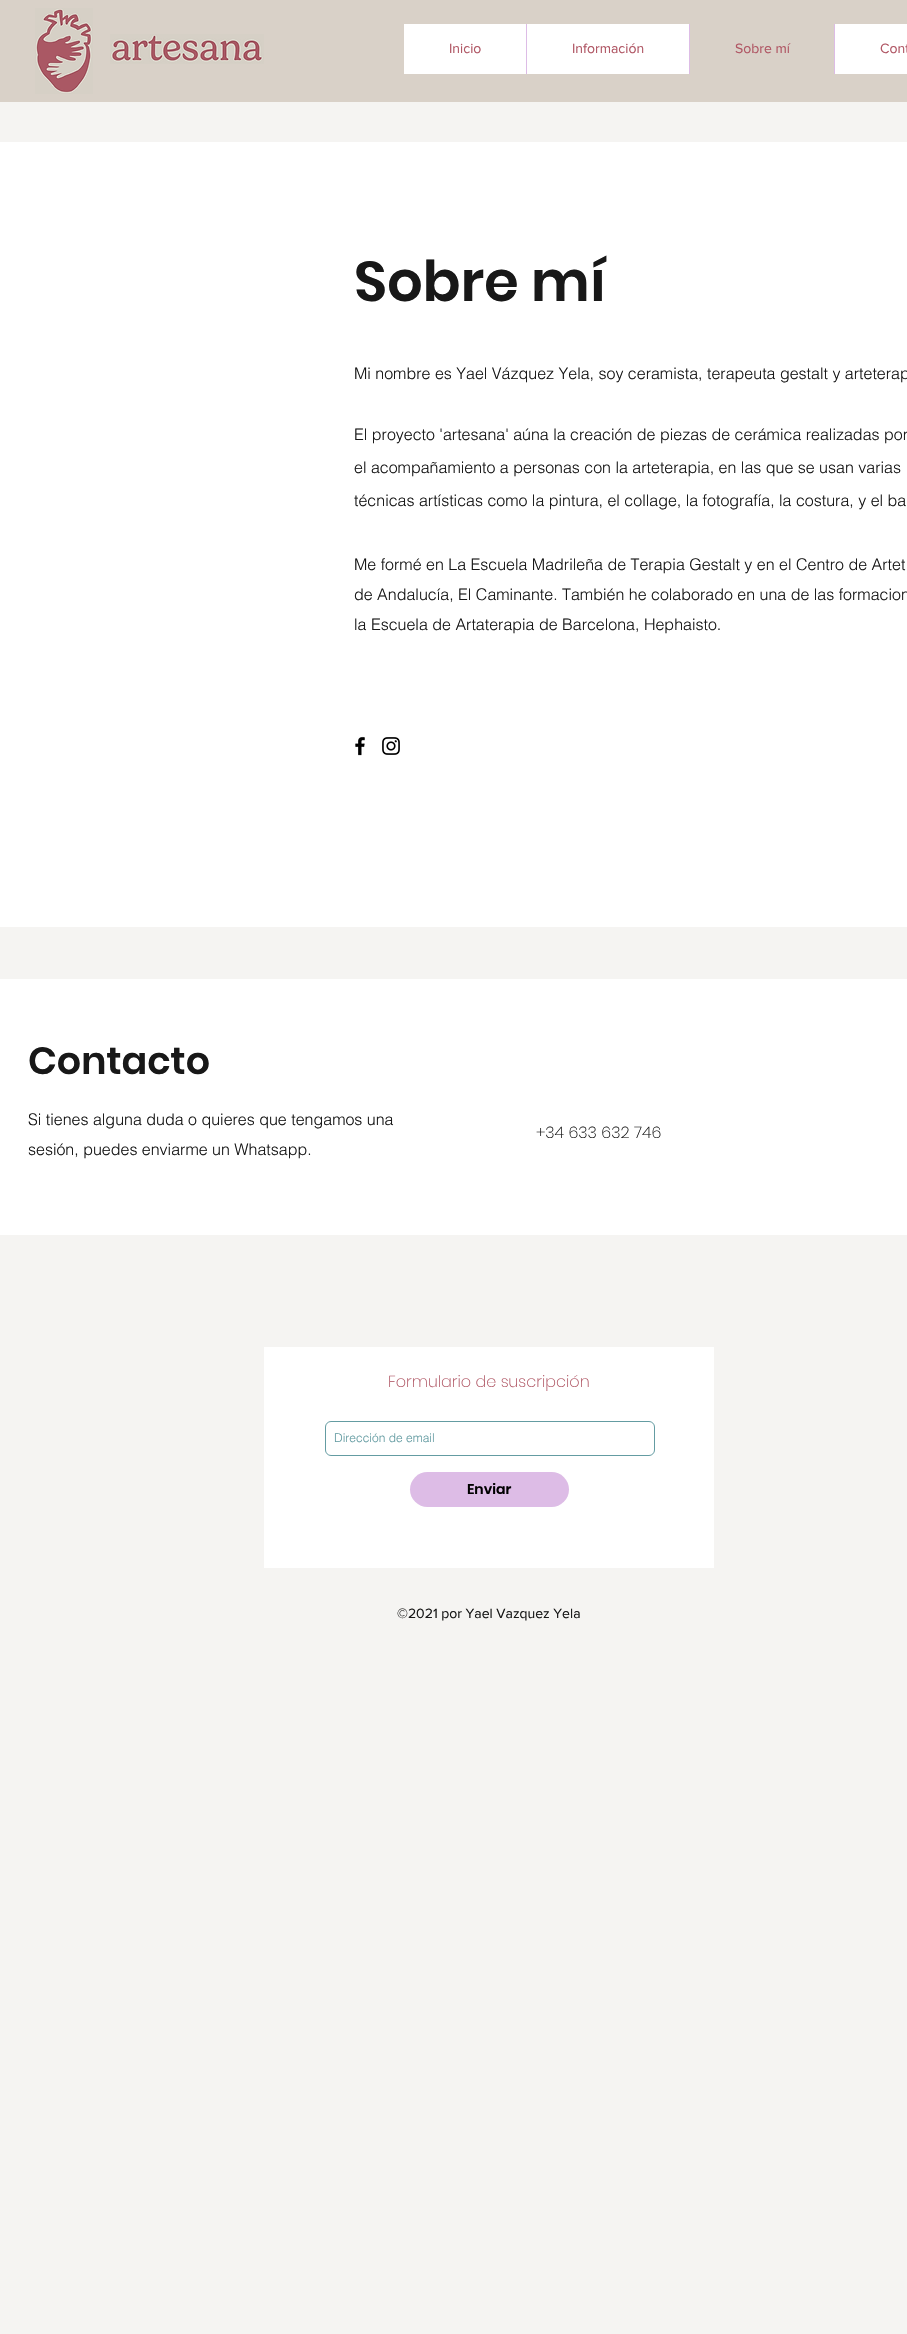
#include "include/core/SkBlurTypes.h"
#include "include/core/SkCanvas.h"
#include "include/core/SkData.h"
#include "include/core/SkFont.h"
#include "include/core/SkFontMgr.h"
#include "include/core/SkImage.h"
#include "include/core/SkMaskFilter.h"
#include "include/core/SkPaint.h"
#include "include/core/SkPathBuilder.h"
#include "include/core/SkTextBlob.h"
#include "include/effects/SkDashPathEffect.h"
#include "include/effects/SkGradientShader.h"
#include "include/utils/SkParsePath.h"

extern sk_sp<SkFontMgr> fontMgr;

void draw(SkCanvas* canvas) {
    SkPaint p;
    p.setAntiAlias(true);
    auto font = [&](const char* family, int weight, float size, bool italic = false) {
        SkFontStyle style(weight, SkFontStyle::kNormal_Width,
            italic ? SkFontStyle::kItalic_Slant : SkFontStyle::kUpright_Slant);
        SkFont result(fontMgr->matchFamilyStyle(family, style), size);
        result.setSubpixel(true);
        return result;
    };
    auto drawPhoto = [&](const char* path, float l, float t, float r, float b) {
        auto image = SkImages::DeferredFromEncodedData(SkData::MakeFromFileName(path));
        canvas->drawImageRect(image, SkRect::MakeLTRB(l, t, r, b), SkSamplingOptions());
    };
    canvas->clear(0xFFF5F4F2);
    p.setColor(0xFFD9D1C8);
    canvas->drawRect(SkRect::MakeLTRB(0, 0, 907, 102), p);
    drawPhoto("media/1.png", 35, 8, 93, 94);
    drawPhoto("media/2.png", 110, 34, 264, 64);
    p.setColor(0xFFFFFFFF);
    canvas->drawRect(SkRect::MakeLTRB(404, 24, 907, 74), p);
    auto font1 = font("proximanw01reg", 400, 14);
    p.setColor(0xFFB05664);
    canvas->drawString("Inicio", 449, 53, font1, p);
    p.setColor(0xFFDDBCE6);
    canvas->drawRect(SkRect::MakeLTRB(526, 24, 527, 74), p);
    p.setColor(0xFFB05664);
    canvas->drawString("Información", 572, 53, font1, p);
    p.setColor(0xFFD9D1C8);
    canvas->drawRect(SkRect::MakeLTRB(690, 24, 834, 74), p);
    p.setColor(0xFFDDBCE6);
    canvas->drawRect(SkRect::MakeLTRB(689, 24, 690, 74), p);
    p.setColor(0xFFB05664);
    canvas->drawString("Sobre mí", 735, 53, font1, p);
    p.setColor(0xFFDDBCE6);
    canvas->drawRect(SkRect::MakeLTRB(834, 24, 835, 74), p);
    p.setColor(0xFFB05664);
    canvas->drawString("Cont", 880, 53, font1, p);
    p.setColor(0xFFFFFFFF);
    canvas->drawRect(SkRect::MakeLTRB(0, 142, 907, 927), p);
    auto font2 = font("Poppins", 600, 56);
    p.setColor(0xFF181818);
    canvas->drawString("Sobre mí", 354, 301, font2, p);
    auto font3 = font("helvetica", 300, 16);
    {
        const struct { const char* s; float x, y; } items[] = {
            {"Mi nombre es Yael Vázquez Yela, soy ceramista, terapeuta gestalt y arteterap", 354, 379},
            {"El proyecto 'artesana' aúna la creación de piezas de cerámica realizadas por", 354, 440},
            {"el acompañamiento a personas con la arteterapia, en las que se usan varias", 354, 473},
            {"técnicas artísticas como la pintura, el collage, la fotografía, la costura, y el ba", 354, 506},
            {"Me formé en La Escuela Madrileña de Terapia Gestalt y en el Centro de Artet", 354, 570},
            {"de Andalucía, El Caminante. También he colaborado en una de las formacion", 354, 600},
            {"la Escuela de Artaterapia de Barcelona, Hephaisto.", 354, 630},
        };
        for (auto [s, x, y] : items) {
            canvas->drawString(s, x, y, font3, p);
        }
    }
    drawPhoto("media/3.png", 355, 736, 365, 756);
    drawPhoto("media/4.png", 382, 737, 400, 755);
    p.setColor(0xFFFFFFFF);
    canvas->drawRect(SkRect::MakeLTRB(0, 979, 907, 1235), p);
    auto font4 = font("Poppins", 600, 38);
    p.setColor(0xFF181818);
    canvas->drawString("Contacto", 28, 1074, font4, p);
    canvas->drawString("Si tienes alguna duda o quieres que tengamos una", 28, 1125, font3, p);
    canvas->drawString("sesión, puedes enviarme un Whatsapp.", 28, 1155, font3, p);
    auto font5 = font("Poppins", 200, 16);
    canvas->drawString("+34 633 632 746", 536, 1138, font5, p);
    p.setColor(0xFFFFFFFF);
    canvas->drawRect(SkRect::MakeLTRB(264, 1347, 714, 1568), p);
    p.setColor(0xFFB05664);
    canvas->drawString("Formulario de suscripción", 388, 1387, font5, p);
    p.setStyle(SkPaint::kStroke_Style);
    p.setStrokeWidth(1);
    p.setColor(0xFF649CA2);
    canvas->drawRoundRect(SkRect::MakeLTRB(325.5f, 1421.5f, 654.5f, 1455.5f), 5.5f, 5.5f, p);
    auto font6 = font("helvetica", 300, 12);
    p.setStyle(SkPaint::kFill_Style);
    canvas->drawString("Dirección de email", 334, 1442, font6, p);
    p.setColor(0xFFDDBCE6);
    canvas->drawRoundRect(SkRect::MakeLTRB(410, 1472, 569, 1507), 17.5f, 17.5f, p);
    auto font7 = font("Poppins", 600, 14);
    p.setColor(0xFF000000);
    canvas->drawString("Enviar", 467, 1494, font7, p);
    p.setColor(0xFF181818);
    canvas->drawString("©2021 por Yael Vazquez Yela", 397, 1618, font1, p);
}
